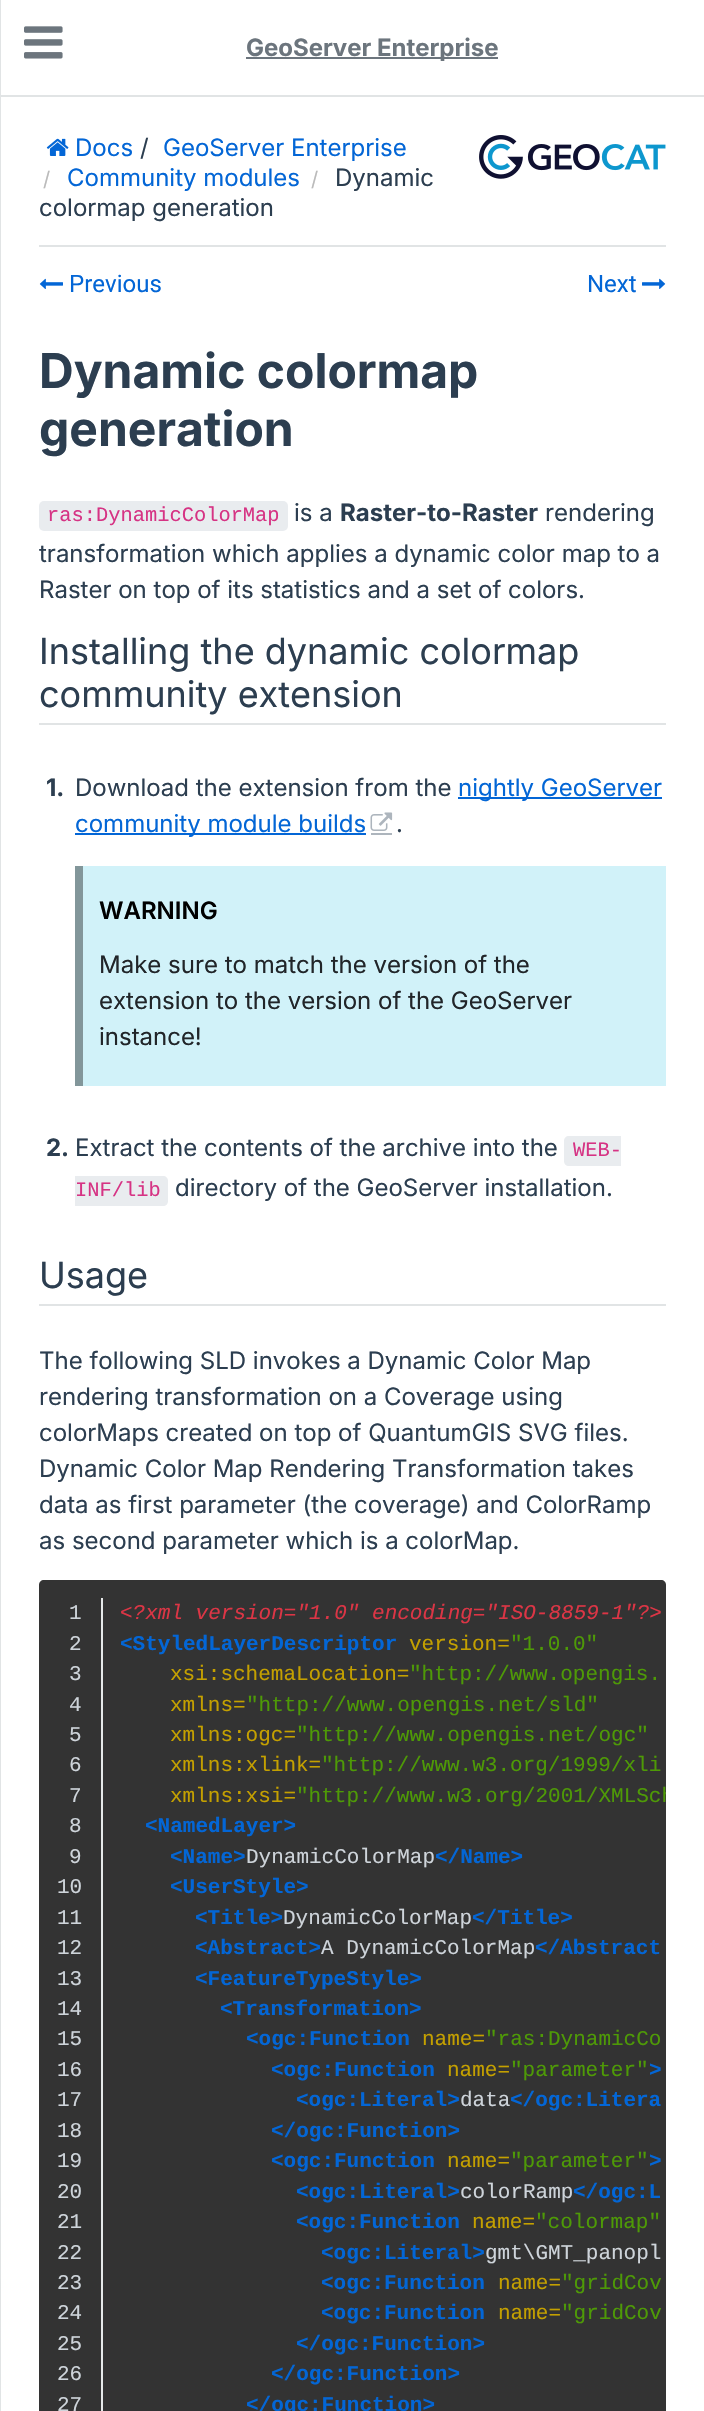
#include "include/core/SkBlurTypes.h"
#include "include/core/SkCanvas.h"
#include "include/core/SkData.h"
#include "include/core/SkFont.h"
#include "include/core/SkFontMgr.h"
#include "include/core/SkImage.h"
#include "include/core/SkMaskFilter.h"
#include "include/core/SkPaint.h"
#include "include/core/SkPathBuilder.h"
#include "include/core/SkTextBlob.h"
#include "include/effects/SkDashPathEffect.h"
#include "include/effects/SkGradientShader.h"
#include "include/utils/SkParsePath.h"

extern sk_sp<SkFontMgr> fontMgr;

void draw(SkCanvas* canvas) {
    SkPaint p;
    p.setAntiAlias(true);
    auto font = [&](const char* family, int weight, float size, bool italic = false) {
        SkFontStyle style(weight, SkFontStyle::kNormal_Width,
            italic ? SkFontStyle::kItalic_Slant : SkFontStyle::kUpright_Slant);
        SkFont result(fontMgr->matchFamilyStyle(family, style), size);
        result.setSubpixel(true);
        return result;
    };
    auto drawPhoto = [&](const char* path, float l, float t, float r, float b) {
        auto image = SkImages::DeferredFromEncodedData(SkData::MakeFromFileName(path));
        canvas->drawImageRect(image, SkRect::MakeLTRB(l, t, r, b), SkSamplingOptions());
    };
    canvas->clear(0xFFFFFFFF);
    p.setColor(0xFFE1E4E5);
    canvas->drawRect(SkRect::MakeLTRB(0, 95, 704, 97), p);
    canvas->drawRect(SkRect::MakeLTRB(0, 0, 1, 2411), p);
    drawPhoto("media/1.png", 24, 26, 63, 59);
    p.setColor(0xFF6C757D);
    canvas->drawRect(SkRect::MakeLTRB(246, 57, 498, 59), p);
    auto font1 = font("Inter", 700, 24);
    canvas->drawString("GeoServer Enterprise", 246, 56, font1, p);
    drawPhoto("media/2.png", 46, 138, 69, 156);
    auto font2 = font("Inter", 400, 24);
    p.setColor(0xFF0366D6);
    canvas->drawString("Docs", 75, 156, font2, p);
    p.setColor(0xFF2C3E50);
    canvas->drawString("/", 140, 156, font2, p);
    p.setColor(0xFF0366D6);
    canvas->drawString("GeoServer Enterprise", 163, 156, font2, p);
    auto font3 = font("Inter", 400, 20);
    p.setColor(0xFFBBBBBB);
    canvas->drawString("/", 43, 186, font3, p);
    p.setColor(0xFF0366D6);
    canvas->drawString("Community modules", 67, 186, font2, p);
    p.setColor(0xFFBBBBBB);
    canvas->drawString("/", 311, 186, font3, p);
    p.setColor(0xFF2C3E50);
    canvas->drawString("Dynamic", 335, 186, font2, p);
    canvas->drawString("colormap generation", 39, 216, font2, p);
    drawPhoto("media/3.png", 479, 135, 666, 179);
    p.setColor(0xFFE1E4E5);
    canvas->drawRect(SkRect::MakeLTRB(39, 245, 666, 247), p);
    drawPhoto("media/4.png", 39, 278, 63, 289);
    auto font4 = font("Roboto", 400, 24);
    p.setColor(0xFF0366D6);
    canvas->drawString("Previous", 69, 292, font4, p);
    canvas->drawString("Next", 587, 292, font4, p);
    drawPhoto("media/5.png", 642, 278, 666, 289);
    auto font5 = font("Inter", 700, 48);
    p.setColor(0xFF2C3E50);
    canvas->drawString("Dynamic colormap", 39, 388, font5, p);
    canvas->drawString("generation", 39, 446, font5, p);
    p.setColor(0xFFE9ECEF);
    canvas->drawRoundRect(SkRect::MakeLTRB(39, 501, 288, 531), 5, 5, p);
    auto font6 = font("Liberation Mono", 400, 20.4f);
    p.setColor(0xFFD63384);
    canvas->drawString("ras:DynamicColorMap", 47, 521, font6, p);
    p.setColor(0xFF2C3E50);
    canvas->drawString("is a", 294, 521, font2, p);
    canvas->drawString("Raster-to-Raster", 340, 521, font1, p);
    {
        const struct { const char* s; float x, y; } items[] = {
            {"rendering", 545, 521},
            {"transformation which applies a dynamic color map to a", 39, 562},
            {"Raster on top of its statistics and a set of colors.", 39, 598},
        };
        for (auto [s, x, y] : items) {
            canvas->drawString(s, x, y, font2, p);
        }
    }
    p.setColor(0xFFE1E4E5);
    canvas->drawRect(SkRect::MakeLTRB(39, 723, 666, 725), p);
    auto font7 = font("Inter", 400, 36);
    p.setColor(0xFF2C3E50);
    canvas->drawString("Installing the dynamic colormap", 39, 664, font7, p);
    canvas->drawString("community extension", 39, 707, font7, p);
    canvas->drawString("1.", 46, 796, font1, p);
    canvas->drawString("Download the extension from the", 75, 796, font2, p);
    p.setColor(0xFF0366D6);
    canvas->drawRect(SkRect::MakeLTRB(458, 797, 662, 799), p);
    canvas->drawString("nightly GeoServer", 458, 796, font2, p);
    canvas->drawRect(SkRect::MakeLTRB(75, 833, 366, 835), p);
    canvas->drawString("community module builds", 75, 832, font2, p);
    p.setColor(0xFFADB5BD);
    canvas->drawRect(SkRect::MakeLTRB(371, 833, 392, 835), p);
    drawPhoto("media/6.png", 370, 812, 393, 831);
    p.setColor(0xFF2C3E50);
    canvas->drawString(".", 396, 832, font2, p);
    p.setColor(0xFFD1F2F9);
    canvas->drawRect(SkRect::MakeLTRB(83, 866, 666, 1086), p);
    p.setColor(0xFF82969A);
    canvas->drawRect(SkRect::MakeLTRB(75, 866, 83, 1086), p);
    auto font8 = font("Inter", 600, 24);
    p.setColor(0xFF000000);
    canvas->drawString("WARNING", 99, 919, font8, p);
    p.setColor(0xFF212529);
    {
        const struct { const char* s; float x, y; } items[] = {
            {"Make sure to match the version of the", 99, 973},
            {"extension to the version of the GeoServer", 99, 1009},
            {"instance!", 99, 1045},
        };
        for (auto [s, x, y] : items) {
            canvas->drawString(s, x, y, font2, p);
        }
    }
    p.setColor(0xFF2C3E50);
    canvas->drawString("2.", 46, 1156, font1, p);
    canvas->drawString("Extract the contents of the archive into the", 75, 1156, font2, p);
    p.setColor(0xFFE9ECEF);
    canvas->drawPath(SkPathBuilder().moveTo(569, 1136).lineTo(621, 1136).lineTo(621, 1166).lineTo(569, 1166).cubicTo(566, 1166, 564, 1164, 564, 1161).lineTo(564, 1141).cubicTo(564, 1138, 566, 1136, 569, 1136).close().detach(), p);
    p.setColor(0xFFD63384);
    canvas->drawString("WEB-", 573, 1156, font6, p);
    p.setColor(0xFFE9ECEF);
    canvas->drawPath(SkPathBuilder().moveTo(75, 1176).lineTo(163, 1176).cubicTo(166, 1176, 168, 1178, 168, 1181).lineTo(168, 1201).cubicTo(168, 1204, 166, 1206, 163, 1206).lineTo(75, 1206).close().detach(), p);
    p.setColor(0xFFD63384);
    canvas->drawString("INF/lib", 75, 1196, font6, p);
    p.setColor(0xFF2C3E50);
    canvas->drawString("directory of the GeoServer installation.", 175, 1196, font2, p);
    p.setColor(0xFFE1E4E5);
    canvas->drawRect(SkRect::MakeLTRB(39, 1304, 666, 1306), p);
    p.setColor(0xFF2C3E50);
    canvas->drawString("Usage", 39, 1288, font7, p);
    {
        const struct { const char* s; float x, y; } items[] = {
            {"The following SLD invokes a Dynamic Color Map", 39, 1369},
            {"rendering transformation on a Coverage using", 39, 1405},
            {"colorMaps created on top of QuantumGIS SVG files.", 39, 1441},
            {"Dynamic Color Map Rendering Transformation takes", 39, 1477},
            {"data as first parameter (the coverage) and ColorRamp", 39, 1513},
            {"as second parameter which is a colorMap.", 39, 1549},
        };
        for (auto [s, x, y] : items) {
            canvas->drawString(s, x, y, font2, p);
        }
    }
    p.setColor(0xFF333333);
    canvas->drawPath(SkPathBuilder().moveTo(44, 1580).lineTo(661, 1580).cubicTo(664, 1580, 666, 1582, 666, 1585).lineTo(666, 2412).lineTo(39, 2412).lineTo(39, 1585).cubicTo(39, 1582, 41, 1580, 44, 1580).close().detach(), p);
    p.setColor(0xFFE6E9EA);
    canvas->drawRect(SkRect::MakeLTRB(101, 1598, 103, 2411), p);
    auto font9 = font("Liberation Mono", 400, 21);
    p.setColor(0xFFCED4DA);
    canvas->drawString("1", 69, 1619, font9, p);
    auto font10 = font("Liberation Mono", 400, 21, true);
    p.setColor(0xFFDC3545);
    canvas->drawString("<?xml version=\"1.0\" encoding=\"ISO-8859-1\"?>", 120, 1619, font10, p);
    p.setColor(0xFFCED4DA);
    canvas->drawString("2", 69, 1650, font9, p);
    auto font11 = font("Liberation Mono", 700, 21);
    p.setColor(0xFF0366D6);
    canvas->drawString("<StyledLayerDescriptor", 120, 1650, font11, p);
    p.setColor(0xFFC4A000);
    canvas->drawString("version=", 409, 1650, font9, p);
    p.setColor(0xFF4E9A06);
    canvas->drawString("\"1.0.0\"", 510, 1650, font9, p);
    p.setColor(0xFFCED4DA);
    canvas->drawString("3", 69, 1680, font9, p);
    p.setColor(0xFFC4A000);
    canvas->drawString("xsi:schemaLocation=", 170, 1680, font9, p);
    p.setColor(0xFF4E9A06);
    canvas->drawString("\"http://www.opengis.", 409, 1680, font9, p);
    p.setColor(0xFFCED4DA);
    canvas->drawString("4", 69, 1711, font9, p);
    p.setColor(0xFFC4A000);
    canvas->drawString("xmlns=", 170, 1711, font9, p);
    p.setColor(0xFF4E9A06);
    canvas->drawString("\"http://www.opengis.net/sld\"", 246, 1711, font9, p);
    p.setColor(0xFFCED4DA);
    canvas->drawString("5", 69, 1741, font9, p);
    p.setColor(0xFFC4A000);
    canvas->drawString("xmlns:ogc=", 170, 1741, font9, p);
    p.setColor(0xFF4E9A06);
    canvas->drawString("\"http://www.opengis.net/ogc\"", 296, 1741, font9, p);
    p.setColor(0xFFCED4DA);
    canvas->drawString("6", 69, 1771, font9, p);
    p.setColor(0xFFC4A000);
    canvas->drawString("xmlns:xlink=", 170, 1771, font9, p);
    p.setColor(0xFF4E9A06);
    canvas->drawString("\"http://www.w3.org/1999/xli", 321, 1771, font9, p);
    p.setColor(0xFFCED4DA);
    canvas->drawString("7", 69, 1802, font9, p);
    p.setColor(0xFFC4A000);
    canvas->drawString("xmlns:xsi=", 170, 1802, font9, p);
    canvas->save();
    canvas->clipPath(SkPathBuilder().moveTo(44, 1580).lineTo(661, 1580).cubicTo(664, 1580, 666, 1582, 666, 1585).lineTo(666, 2769).cubicTo(666, 2772, 664, 2774, 661, 2774).lineTo(44, 2774).cubicTo(41, 2774, 39, 2772, 39, 2769).lineTo(39, 1585).cubicTo(39, 1582, 41, 1580, 44, 1580).close().detach(), true);
    p.setColor(0xFF4E9A06);
    canvas->drawString("\"http://www.w3.org/2001/XMLSch", 296, 1802, font9, p);
    canvas->restore();
    p.setColor(0xFFCED4DA);
    canvas->drawString("8", 69, 1832, font9, p);
    p.setColor(0xFF0366D6);
    canvas->drawString("<NamedLayer>", 145, 1832, font11, p);
    p.setColor(0xFFCED4DA);
    canvas->drawString("9", 69, 1863, font9, p);
    p.setColor(0xFF0366D6);
    canvas->drawString("<Name>", 170, 1863, font11, p);
    p.setColor(0xFFCED4DA);
    canvas->drawString("DynamicColorMap", 246, 1863, font9, p);
    p.setColor(0xFF0366D6);
    canvas->drawString("</Name>", 435, 1863, font11, p);
    p.setColor(0xFFCED4DA);
    canvas->drawString("10", 57, 1893, font9, p);
    p.setColor(0xFF0366D6);
    canvas->drawString("<UserStyle>", 170, 1893, font11, p);
    p.setColor(0xFFCED4DA);
    canvas->drawString("11", 57, 1924, font9, p);
    p.setColor(0xFF0366D6);
    canvas->drawString("<Title>", 195, 1924, font11, p);
    p.setColor(0xFFCED4DA);
    canvas->drawString("DynamicColorMap", 283, 1924, font9, p);
    p.setColor(0xFF0366D6);
    canvas->drawString("</Title>", 472, 1924, font11, p);
    p.setColor(0xFFCED4DA);
    canvas->drawString("12", 57, 1954, font9, p);
    p.setColor(0xFF0366D6);
    canvas->drawString("<Abstract>", 195, 1954, font11, p);
    p.setColor(0xFFCED4DA);
    canvas->drawString("A DynamicColorMap", 321, 1954, font9, p);
    p.setColor(0xFF0366D6);
    canvas->drawString("</Abstract", 535, 1954, font11, p);
    p.setColor(0xFFCED4DA);
    canvas->drawString("13", 57, 1985, font9, p);
    p.setColor(0xFF0366D6);
    canvas->drawString("<FeatureTypeStyle>", 195, 1985, font11, p);
    p.setColor(0xFFCED4DA);
    canvas->drawString("14", 57, 2015, font9, p);
    p.setColor(0xFF0366D6);
    canvas->drawString("<Transformation>", 220, 2015, font11, p);
    p.setColor(0xFFCED4DA);
    canvas->drawString("15", 57, 2045, font9, p);
    p.setColor(0xFF0366D6);
    canvas->drawString("<ogc:Function", 246, 2045, font11, p);
    p.setColor(0xFFC4A000);
    canvas->drawString("name=", 422, 2045, font9, p);
    p.setColor(0xFF4E9A06);
    canvas->drawString("\"ras:DynamicCo", 485, 2045, font9, p);
    p.setColor(0xFFCED4DA);
    canvas->drawString("16", 57, 2076, font9, p);
    p.setColor(0xFF0366D6);
    canvas->drawString("<ogc:Function", 271, 2076, font11, p);
    p.setColor(0xFFC4A000);
    canvas->drawString("name=", 447, 2076, font9, p);
    p.setColor(0xFF4E9A06);
    canvas->drawString("\"parameter\"", 510, 2076, font9, p);
    p.setColor(0xFF0366D6);
    canvas->drawString(">", 649, 2076, font11, p);
    p.setColor(0xFFCED4DA);
    canvas->drawString("17", 57, 2106, font9, p);
    p.setColor(0xFF0366D6);
    canvas->drawString("<ogc:Literal>", 296, 2106, font11, p);
    p.setColor(0xFFCED4DA);
    canvas->drawString("data", 460, 2106, font9, p);
    p.setColor(0xFF0366D6);
    canvas->drawString("</ogc:Litera", 510, 2106, font11, p);
    p.setColor(0xFFCED4DA);
    canvas->drawString("18", 57, 2137, font9, p);
    p.setColor(0xFF0366D6);
    canvas->drawString("</ogc:Function>", 271, 2137, font11, p);
    p.setColor(0xFFCED4DA);
    canvas->drawString("19", 57, 2167, font9, p);
    p.setColor(0xFF0366D6);
    canvas->drawString("<ogc:Function", 271, 2167, font11, p);
    p.setColor(0xFFC4A000);
    canvas->drawString("name=", 447, 2167, font9, p);
    p.setColor(0xFF4E9A06);
    canvas->drawString("\"parameter\"", 510, 2167, font9, p);
    p.setColor(0xFF0366D6);
    canvas->drawString(">", 649, 2167, font11, p);
    p.setColor(0xFFCED4DA);
    canvas->drawString("20", 57, 2198, font9, p);
    p.setColor(0xFF0366D6);
    canvas->drawString("<ogc:Literal>", 296, 2198, font11, p);
    p.setColor(0xFFCED4DA);
    canvas->drawString("colorRamp", 460, 2198, font9, p);
    p.setColor(0xFF0366D6);
    canvas->drawString("</ogc:L", 573, 2198, font11, p);
    p.setColor(0xFFCED4DA);
    canvas->drawString("21", 57, 2228, font9, p);
    p.setColor(0xFF0366D6);
    canvas->drawString("<ogc:Function", 296, 2228, font11, p);
    p.setColor(0xFFC4A000);
    canvas->drawString("name=", 472, 2228, font9, p);
    p.setColor(0xFF4E9A06);
    canvas->drawString("\"colormap\"", 535, 2228, font9, p);
    p.setColor(0xFFCED4DA);
    canvas->drawString("22", 57, 2259, font9, p);
    p.setColor(0xFF0366D6);
    canvas->drawString("<ogc:Literal>", 321, 2259, font11, p);
    p.setColor(0xFFCED4DA);
    canvas->drawString("gmt\\GMT_panopl", 485, 2259, font9, p);
    canvas->drawString("23", 57, 2289, font9, p);
    p.setColor(0xFF0366D6);
    canvas->drawString("<ogc:Function", 321, 2289, font11, p);
    p.setColor(0xFFC4A000);
    canvas->drawString("name=", 498, 2289, font9, p);
    p.setColor(0xFF4E9A06);
    canvas->drawString("\"gridCov", 561, 2289, font9, p);
    p.setColor(0xFFCED4DA);
    canvas->drawString("24", 57, 2319, font9, p);
    p.setColor(0xFF0366D6);
    canvas->drawString("<ogc:Function", 321, 2319, font11, p);
    p.setColor(0xFFC4A000);
    canvas->drawString("name=", 498, 2319, font9, p);
    p.setColor(0xFF4E9A06);
    canvas->drawString("\"gridCov", 561, 2319, font9, p);
    p.setColor(0xFFCED4DA);
    canvas->drawString("25", 57, 2350, font9, p);
    p.setColor(0xFF0366D6);
    canvas->drawString("</ogc:Function>", 296, 2350, font11, p);
    p.setColor(0xFFCED4DA);
    canvas->drawString("26", 57, 2380, font9, p);
    p.setColor(0xFF0366D6);
    canvas->drawString("</ogc:Function>", 271, 2380, font11, p);
    p.setColor(0xFFCED4DA);
    canvas->drawString("27", 57, 2411, font9, p);
    p.setColor(0xFF0366D6);
    canvas->drawString("</ogc:Function>", 246, 2411, font11, p);
}
